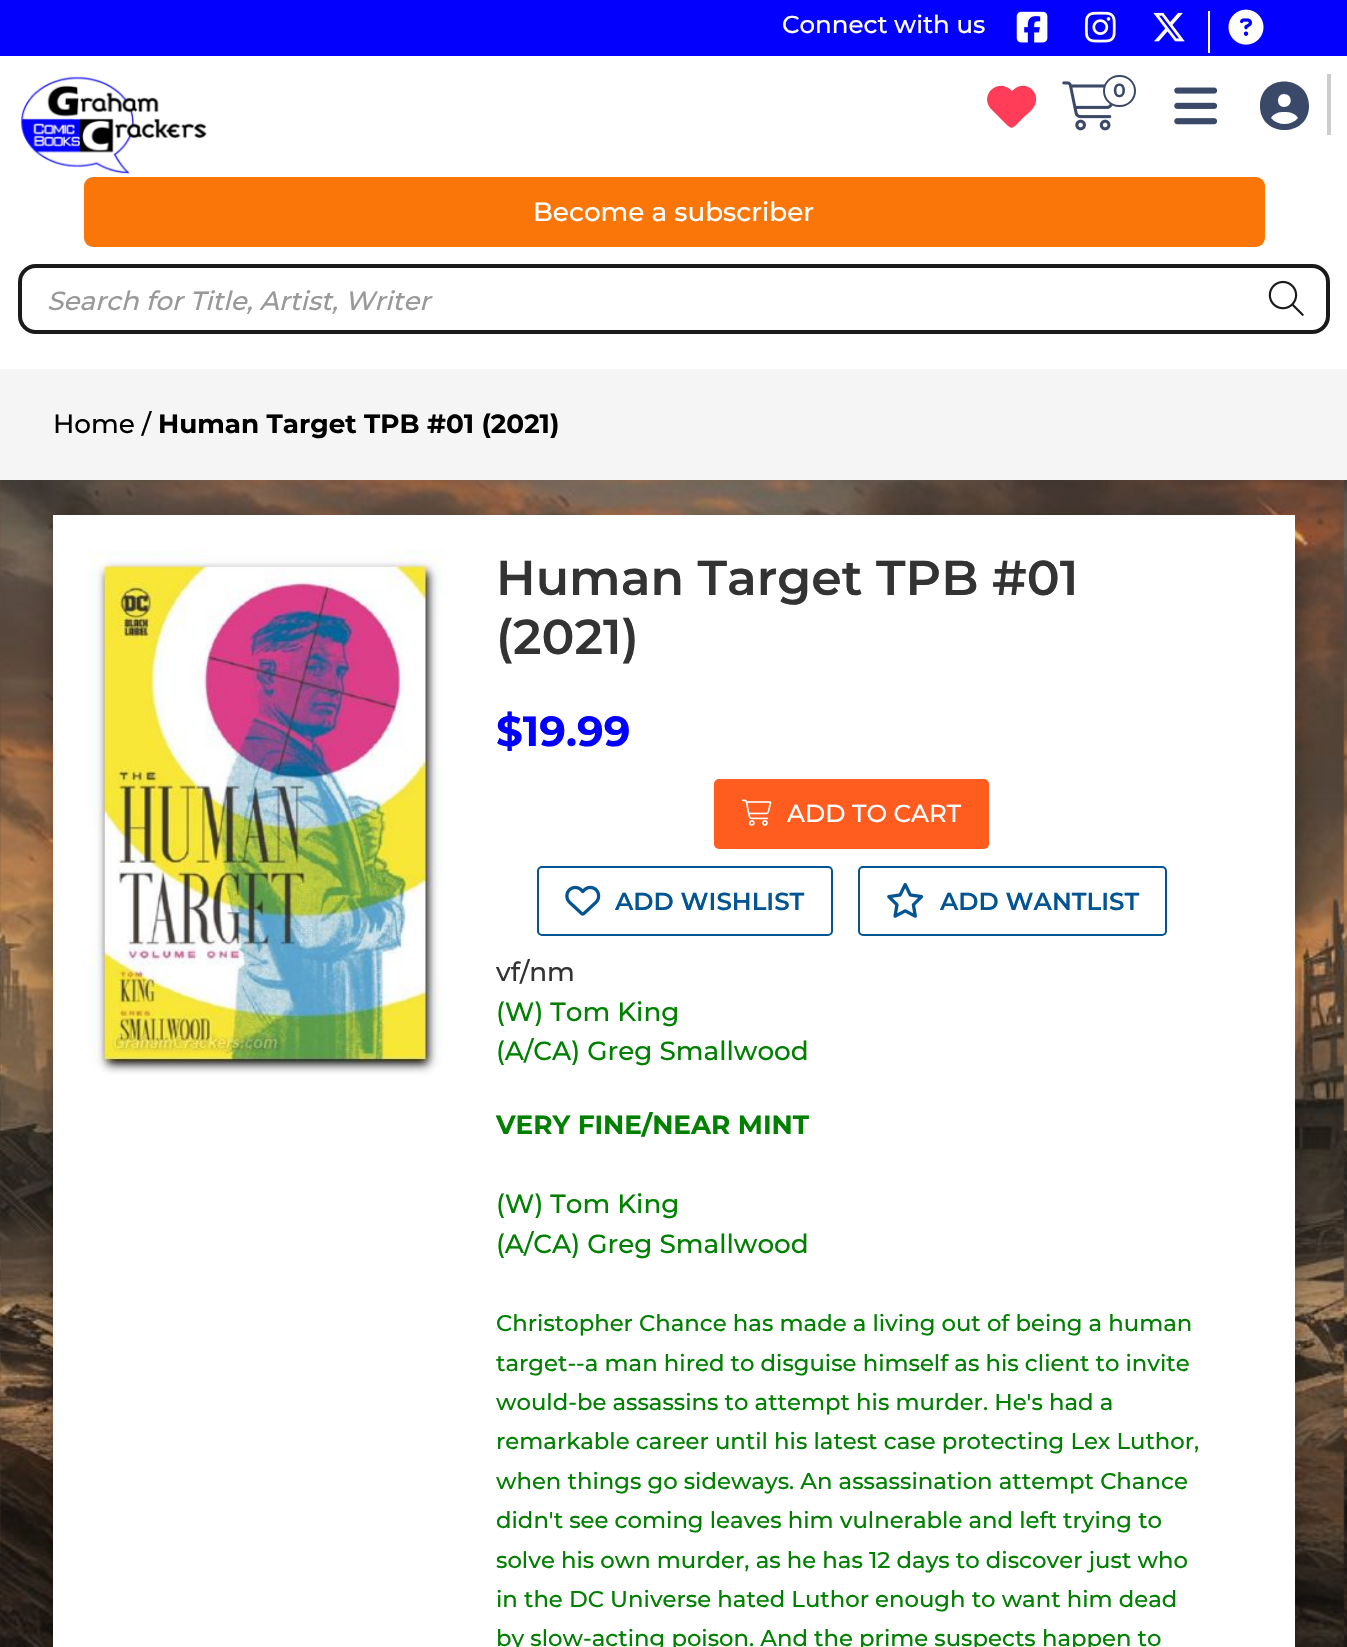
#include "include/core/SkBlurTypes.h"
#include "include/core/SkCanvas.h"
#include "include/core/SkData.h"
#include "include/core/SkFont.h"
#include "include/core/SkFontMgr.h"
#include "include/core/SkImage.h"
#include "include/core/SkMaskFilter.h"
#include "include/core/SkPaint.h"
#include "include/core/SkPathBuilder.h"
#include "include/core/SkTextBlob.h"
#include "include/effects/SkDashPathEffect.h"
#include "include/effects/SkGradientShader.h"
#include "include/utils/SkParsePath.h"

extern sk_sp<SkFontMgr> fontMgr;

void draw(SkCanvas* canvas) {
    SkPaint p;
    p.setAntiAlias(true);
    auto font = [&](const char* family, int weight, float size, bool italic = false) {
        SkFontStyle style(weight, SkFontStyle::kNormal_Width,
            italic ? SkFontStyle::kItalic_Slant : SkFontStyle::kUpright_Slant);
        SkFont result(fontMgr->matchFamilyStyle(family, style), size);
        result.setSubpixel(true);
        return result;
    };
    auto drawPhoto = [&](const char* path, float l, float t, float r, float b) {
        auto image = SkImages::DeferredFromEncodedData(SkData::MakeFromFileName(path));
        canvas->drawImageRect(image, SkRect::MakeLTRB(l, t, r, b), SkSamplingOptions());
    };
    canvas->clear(0xFFFFFFFF);
    drawPhoto("media/1.png", 0, 480, 1347, 1647);
    p.setColor(0xFF0300FD);
    canvas->drawRect(SkRect::MakeLTRB(0, 0, 1347, 56), p);
    auto font1 = font("Montserrat", 500, 24.5f);
    p.setColor(0xFFFFFFFF);
    canvas->drawString("Connect with us", 782, 33, font1, p);
    drawPhoto("media/2.png", 1016, 11, 1048, 43);
    drawPhoto("media/3.png", 1085, 11, 1116, 43);
    drawPhoto("media/4.png", 1153, 12, 1185, 42);
    canvas->drawRect(SkRect::MakeLTRB(1208, 11, 1210, 53), p);
    drawPhoto("media/5.png", 1228, 9, 1264, 45);
    drawPhoto("media/6.png", 20, 76, 207, 174);
    p.setColor(0xFFCCCCCC);
    canvas->drawRect(SkRect::MakeLTRB(1327, 74, 1331, 135), p);
    p.setColor(0xFFFF3D58);
    canvas->drawPath(SkPathBuilder().moveTo(992, 110).lineTo(1009, 126).lineTo(992, 110).lineTo(1006, 124).cubicTo(1011, 129, 1012, 129, 1017, 124).lineTo(1023, 118).cubicTo(1027, 114, 1032, 111, 1035, 105).cubicTo(1041, 91, 1024, 78, 1012, 91).cubicTo(997, 76, 978, 97, 992, 110).close().detach(), p);
    drawPhoto("media/7.png", 1062, 81, 1113, 131);
    p.setColor(0xFFFFFFFF);
    canvas->drawRoundRect(SkRect::MakeLTRB(1104, 76, 1135, 106), 15, 15, p);
    p.setStyle(SkPaint::kStroke_Style);
    p.setStrokeWidth(2);
    p.setColor(0xFF3A4968);
    canvas->drawRoundRect(SkRect::MakeLTRB(1104, 76, 1135, 106), 15, 15, p);
    auto font2 = font("Montserrat", 600, 19);
    p.setStyle(SkPaint::kFill_Style);
    canvas->drawString("0", 1113, 97, font2, p);
    drawPhoto("media/8.png", 1174, 87, 1218, 125);
    canvas->drawPath(SkPathBuilder().moveTo(1298, 118).cubicTo(1295, 113, 1290, 112, 1284, 112).cubicTo(1279, 112, 1274, 113, 1271, 118).cubicTo(1278, 126, 1291, 126, 1298, 118).close().moveTo(1260, 106).cubicTo(1260, 73, 1309, 74, 1309, 106).cubicTo(1309, 138, 1260, 138, 1260, 106).close().moveTo(1284, 107).cubicTo(1293, 107, 1293, 94, 1284, 94).cubicTo(1276, 94, 1276, 107, 1284, 107).close().detach(), p);
    p.setColor(0xFFFA7609);
    canvas->drawRoundRect(SkRect::MakeLTRB(84, 177, 1265, 247), 9, 9, p);
    auto font3 = font("Montserrat", 500, 26.25f);
    p.setColor(0xFFFFFFFF);
    canvas->drawString("Become a subscriber", 533, 221, font3, p);
    p.setStyle(SkPaint::kStroke_Style);
    p.setStrokeWidth(4);
    p.setColor(0xFF1A1A1A);
    canvas->drawRoundRect(SkRect::MakeLTRB(20, 266, 1328, 332), 16, 16, p);
    auto font4 = font("Montserrat", 500, 26.25f, true);
    p.setStyle(SkPaint::kFill_Style);
    p.setColor(0xFF999999);
    canvas->drawString("Search for Title, Artist, Writer", 47, 310, font4, p);
    drawPhoto("media/9.png", 1268, 280, 1304, 316);
    p.setColor(0xFFF5F5F5);
    canvas->drawRect(SkRect::MakeLTRB(0, 369, 1347, 480), p);
    p.setColor(0xFF000000);
    canvas->drawString("Home /", 53, 433, font3, p);
    auto font5 = font("Montserrat", 700, 26.25f);
    canvas->drawString("Human Target TPB #01 (2021)", 158, 433, font5, p);
    p.setColor(0x59000000);
    p.setMaskFilter(SkMaskFilter::MakeBlur(kNormal_SkBlurStyle, 13));
    canvas->drawRect(SkRect::MakeLTRB(53, 523, 1295, 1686), p);
    p.setMaskFilter(nullptr);
    p.setColor(0xFFFFFFFF);
    canvas->drawRect(SkRect::MakeLTRB(53, 515, 1295, 1647), p);
    drawPhoto("media/10.png", 87, 549, 443, 1075);
    auto font6 = font("Montserrat", 600, 49);
    p.setColor(0xFF333333);
    canvas->drawString("Human Target TPB #01", 496, 595, font6, p);
    canvas->drawString("(2021)", 496, 654, font6, p);
    auto font7 = font("Montserrat", 700, 42);
    p.setColor(0xFF0300FD);
    canvas->drawString("$19.99", 496, 746, font7, p);
    p.setColor(0xFFFF5C20);
    canvas->drawRoundRect(SkRect::MakeLTRB(714, 779, 989, 849), 5, 5, p);
    drawPhoto("media/11.png", 742, 799, 772, 826);
    p.setColor(0xFFFFFFFF);
    canvas->drawString("ADD TO CART", 787, 822, font1, p);
    p.setStyle(SkPaint::kStroke_Style);
    p.setStrokeWidth(2);
    p.setColor(0xFF025492);
    canvas->drawRoundRect(SkRect::MakeLTRB(538, 867, 832, 935), 4, 4, p);
    drawPhoto("media/12.png", 565, 885, 601, 916);
    auto font8 = font("Montserrat", 600, 24.5f);
    p.setStyle(SkPaint::kFill_Style);
    canvas->drawString("ADD WISHLIST", 615, 910, font8, p);
    p.setStyle(SkPaint::kStroke_Style);
    canvas->drawRoundRect(SkRect::MakeLTRB(859, 867, 1166, 935), 4, 4, p);
    drawPhoto("media/13.png", 887, 882, 924, 918);
    p.setStyle(SkPaint::kFill_Style);
    canvas->drawString("ADD WANTLIST", 940, 910, font8, p);
    p.setColor(0xFF333333);
    canvas->drawString("vf/nm", 496, 981, font3, p);
    p.setColor(0xFF008000);
    canvas->drawString("(W) Tom King", 496, 1021, font3, p);
    canvas->drawString("(A/CA) Greg Smallwood", 496, 1060, font3, p);
    canvas->drawString("VERY FINE/NEAR MINT", 496, 1134, font5, p);
    canvas->drawString("(W) Tom King", 496, 1213, font3, p);
    canvas->drawString("(A/CA) Greg Smallwood", 496, 1253, font3, p);
    auto font9 = font("Montserrat", 500, 22.75f);
    {
        const struct { const char* s; float x, y; } items[] = {
            {"Christopher Chance has made a living out of being a human", 496, 1331},
            {"target--a man hired to disguise himself as his client to invite", 496, 1371},
            {"would-be assassins to attempt his murder. He's had a", 496, 1410},
            {"remarkable career until his latest case protecting Lex Luthor,", 496, 1449},
            {"when things go sideways. An assassination attempt Chance", 496, 1489},
            {"didn't see coming leaves him vulnerable and left trying to", 496, 1528},
            {"solve his own murder, as he has 12 days to discover just who", 496, 1568},
            {"in the DC Universe hated Luthor enough to want him dead", 496, 1607},
            {"by slow-acting poison. And the prime suspects happen to", 496, 1646},
        };
        for (auto [s, x, y] : items) {
            canvas->drawString(s, x, y, font9, p);
        }
    }
}
